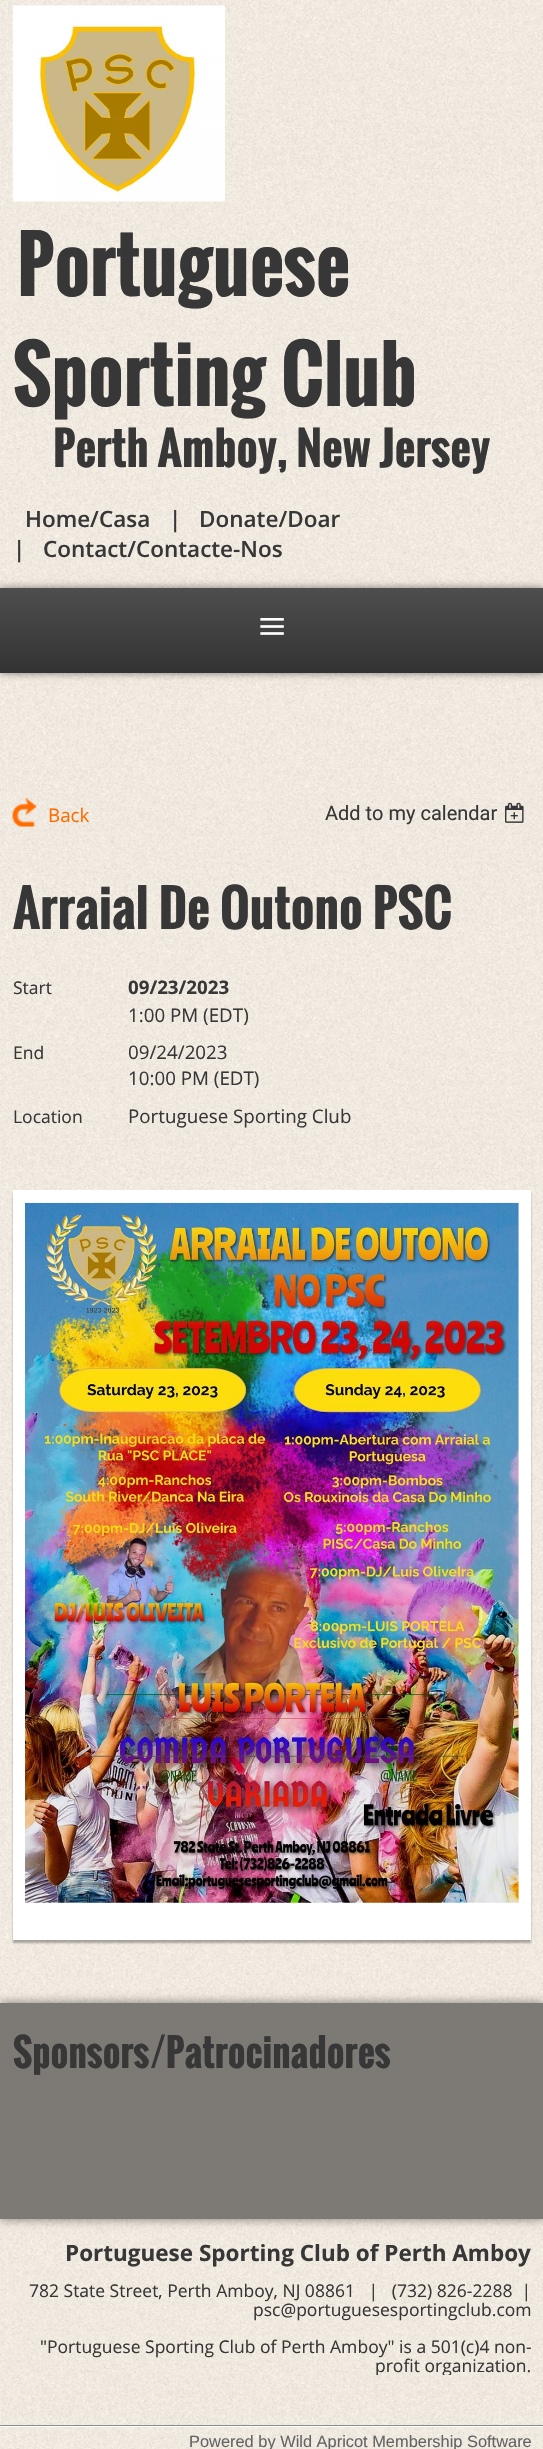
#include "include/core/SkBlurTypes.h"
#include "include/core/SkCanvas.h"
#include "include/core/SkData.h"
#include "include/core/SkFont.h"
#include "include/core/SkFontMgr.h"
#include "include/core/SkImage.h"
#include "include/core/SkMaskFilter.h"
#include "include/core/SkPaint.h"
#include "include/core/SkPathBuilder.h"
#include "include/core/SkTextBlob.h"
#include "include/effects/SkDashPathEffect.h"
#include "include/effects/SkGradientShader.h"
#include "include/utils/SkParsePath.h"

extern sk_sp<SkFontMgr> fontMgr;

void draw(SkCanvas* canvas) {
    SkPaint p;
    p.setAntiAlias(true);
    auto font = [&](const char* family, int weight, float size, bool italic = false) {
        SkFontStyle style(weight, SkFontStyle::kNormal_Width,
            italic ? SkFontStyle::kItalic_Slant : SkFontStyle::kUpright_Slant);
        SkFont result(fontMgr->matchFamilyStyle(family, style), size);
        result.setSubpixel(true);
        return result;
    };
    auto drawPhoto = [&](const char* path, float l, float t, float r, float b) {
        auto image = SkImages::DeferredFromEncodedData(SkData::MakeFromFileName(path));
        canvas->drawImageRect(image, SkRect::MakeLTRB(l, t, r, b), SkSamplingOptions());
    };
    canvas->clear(0xFFFFFFFF);
    drawPhoto("media/1.png", 0, 0, 543, 2449);
    drawPhoto("media/2.png", 12, 5, 225, 202);
    auto font1 = font("Oswald", 700, 75);
    p.setColor(0xFF373737);
    canvas->drawString("Portuguese", 17, 296, font1, p);
    canvas->drawString("Sporting Club", 13, 406, font1, p);
    auto font2 = font("Oswald", 700, 45);
    canvas->drawString("Perth Amboy, New Jersey", 53, 467, font2, p);
    auto font3 = font("Open Sans", 600, 22.5f);
    {
        const struct { const char* s; float x, y; } items[] = {
            {"Home/Casa", 25, 527},
            {"|", 169, 527},
            {"Donate/Doar", 199, 527},
            {"|", 13, 557},
            {"Contact/Contacte-Nos", 43, 557},
        };
        for (auto [s, x, y] : items) {
            canvas->drawString(s, x, y, font3, p);
        }
    }
    p.setColor(0x80000000);
    p.setMaskFilter(SkMaskFilter::MakeBlur(kNormal_SkBlurStyle, 4));
    canvas->drawRect(SkRect::MakeLTRB(0, 588, 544, 673), p);
    p.setMaskFilter(nullptr);
    {
        const SkColor colors[] = {0xFF4F4E4E, 0xFF333333};
        const float stops[] = {0, 1};
        const SkPoint ends[] = {{272, 588}, {272, 673}};
        p.setShader(SkGradientShader::MakeLinear(ends, colors, stops, 2, SkTileMode::kClamp));
        p.setAlpha(255);
    }
    canvas->drawRect(SkRect::MakeLTRB(0, 588, 543, 673), p);
    auto font4 = font("Liberation Serif", 400, 50);
    p.setShader(nullptr);
    p.setColor(0xFFFFFFFF);
    canvas->drawString("≡", 258, 643, font4, p);
    drawPhoto("media/3.png", 12, 797, 37, 827);
    auto font5 = font("Open Sans", 400, 18.75f);
    p.setColor(0xFFFF6C00);
    canvas->drawString("Back", 48, 822, font5, p);
    auto font6 = font("Roboto", 400, 20);
    p.setColor(0xFF373737);
    canvas->drawString("Add to my calendar", 325, 820, font6, p);
    drawPhoto("media/4.png", 505, 802, 524, 823);
    auto font7 = font("Oswald", 700, 50);
    canvas->drawString("Arraial De Outono PSC", 13, 929, font7, p);
    auto font8 = font("Open Sans", 400, 17.5f);
    canvas->drawString("Start", 13, 994, font8, p);
    auto font9 = font("Open Sans", 700, 18.75f);
    canvas->drawString("09/23/2023", 128, 994, font9, p);
    canvas->drawString("1:00 PM (EDT)", 128, 1022, font5, p);
    canvas->drawString("End", 13, 1059, font8, p);
    canvas->drawString("09/24/2023", 128, 1059, font5, p);
    canvas->drawString("10:00 PM (EDT)", 128, 1085, font5, p);
    canvas->drawString("Location", 13, 1123, font8, p);
    canvas->drawString("Portuguese Sporting Club", 128, 1123, font5, p);
    p.setColor(0x4D000000);
    p.setMaskFilter(SkMaskFilter::MakeBlur(kNormal_SkBlurStyle, 1));
    canvas->drawRect(SkRect::MakeLTRB(13, 1193, 531, 1943), p);
    p.setMaskFilter(nullptr);
    p.setColor(0xFFFFFFFF);
    canvas->drawRect(SkRect::MakeLTRB(13, 1190, 531, 1940), p);
    drawPhoto("media/5.png", 25, 1202, 519, 1903);
    p.setColor(0x80000000);
    p.setMaskFilter(SkMaskFilter::MakeBlur(kNormal_SkBlurStyle, 5));
    canvas->drawRect(SkRect::MakeLTRB(0, 2003, 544, 2219), p);
    p.setMaskFilter(nullptr);
    p.setColor(0xFF7D7A76);
    canvas->drawRect(SkRect::MakeLTRB(0, 2003, 543, 2219), p);
    auto font10 = font("Oswald", 700, 37.5f);
    p.setColor(0xFF373737);
    canvas->drawString("Sponsors/Patrocinadores", 13, 2068, font10, p);
    canvas->save();
    canvas->clipRect(SkRect::MakeLTRB(13, 2244, 531, 2375));
    auto font11 = font("Open Sans", 700, 22.5f);
    canvas->drawString("Portuguese Sporting Club of Perth Amboy", 65, 2261, font11, p);
    canvas->restore();
    {
        const struct { const char* s; float x, y; } items[] = {
            {"782 State Street, Perth Amboy, NJ 08861   |   (732) 826-2288  |", 29, 2297},
            {"psc@portuguesesportingclub.com", 253, 2316},
            {"\"Portuguese Sporting Club of Perth Amboy\" is a 501(c)4 non-", 40, 2353},
        };
        for (auto [s, x, y] : items) {
            canvas->drawString(s, x, y, font8, p);
        }
    }
    canvas->save();
    canvas->clipRect(SkRect::MakeLTRB(13, 2244, 531, 2375));
    canvas->drawString("profit organization.", 375, 2372, font8, p);
    canvas->restore();
    p.setColor(0xFF8D8D8D);
    canvas->drawRect(SkRect::MakeLTRB(0, 2425, 543, 2426), p);
    p.setColor(0xFFFFFFFF);
    canvas->drawRect(SkRect::MakeLTRB(0, 2426, 543, 2427), p);
    auto font12 = font("Liberation Sans", 400, 16.4f);
    p.setColor(0xFF646464);
    canvas->drawString("Powered by Wild Apricot Membership Software", 189, 2447, font12, p);
}
